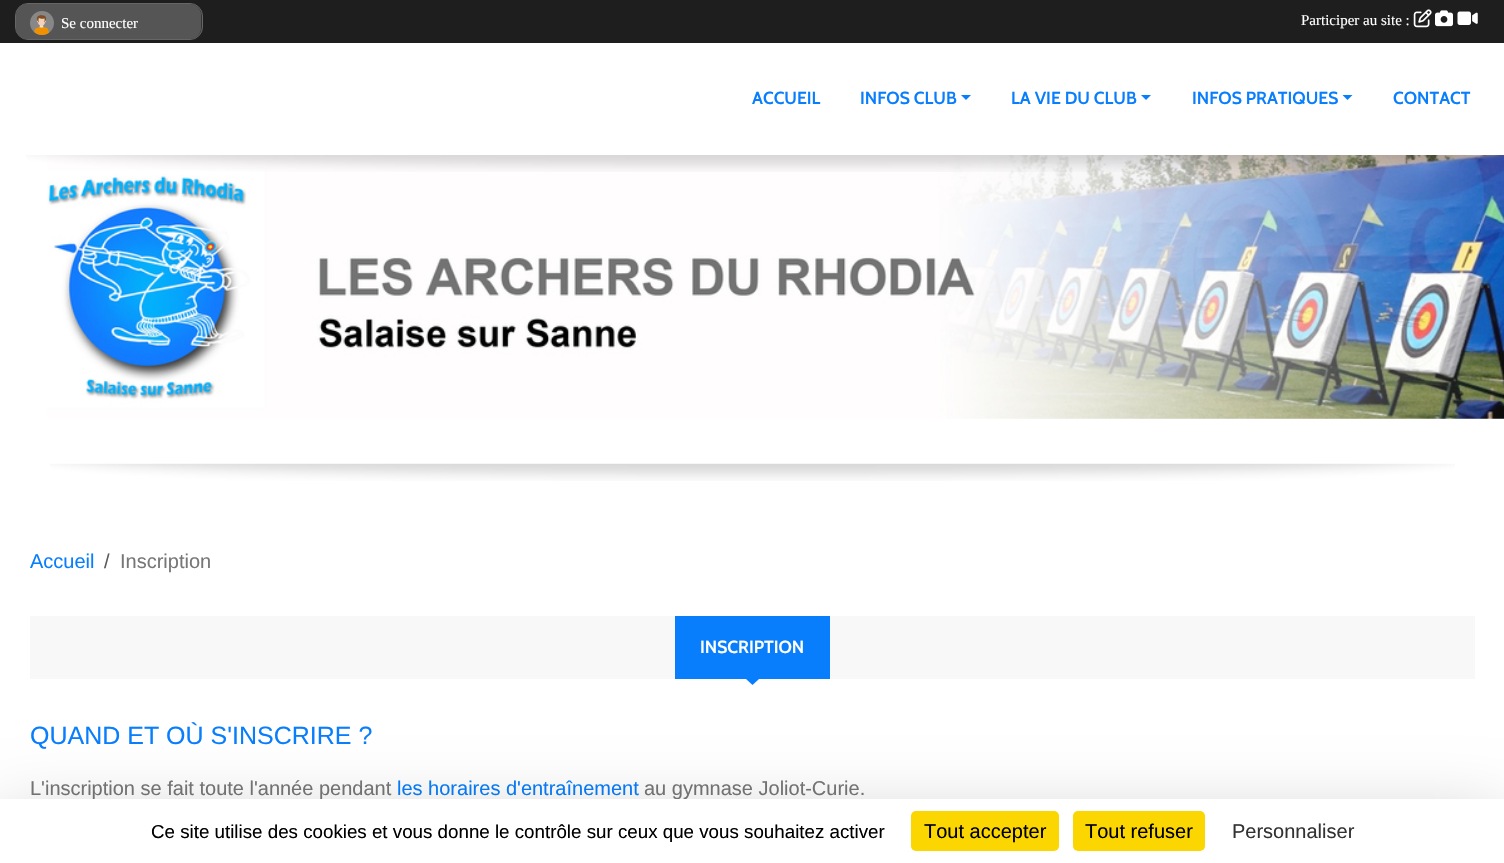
#include "include/core/SkBlurTypes.h"
#include "include/core/SkCanvas.h"
#include "include/core/SkData.h"
#include "include/core/SkFont.h"
#include "include/core/SkFontMgr.h"
#include "include/core/SkImage.h"
#include "include/core/SkMaskFilter.h"
#include "include/core/SkPaint.h"
#include "include/core/SkPathBuilder.h"
#include "include/core/SkTextBlob.h"
#include "include/effects/SkDashPathEffect.h"
#include "include/effects/SkGradientShader.h"
#include "include/utils/SkParsePath.h"

extern sk_sp<SkFontMgr> fontMgr;

void draw(SkCanvas* canvas) {
    SkPaint p;
    p.setAntiAlias(true);
    auto font = [&](const char* family, int weight, float size, bool italic = false) {
        SkFontStyle style(weight, SkFontStyle::kNormal_Width,
            italic ? SkFontStyle::kItalic_Slant : SkFontStyle::kUpright_Slant);
        SkFont result(fontMgr->matchFamilyStyle(family, style), size);
        result.setSubpixel(true);
        return result;
    };
    auto drawPhoto = [&](const char* path, float l, float t, float r, float b) {
        auto image = SkImages::DeferredFromEncodedData(SkData::MakeFromFileName(path));
        canvas->drawImageRect(image, SkRect::MakeLTRB(l, t, r, b), SkSamplingOptions());
    };
    canvas->clear(0xFFFFFFFF);
    p.setColor(0xFF1E1E1E);
    canvas->drawRect(SkRect::MakeLTRB(0, 0, 1504, 43), p);
    p.setColor(0xFF333333);
    canvas->drawRoundRect(SkRect::MakeLTRB(15.5f, 3.5f, 202.5f, 39.5f), 12.5f, 12.5f, p);
    p.setStyle(SkPaint::kStroke_Style);
    p.setStrokeWidth(1);
    p.setColor(0xFF666666);
    canvas->drawRoundRect(SkRect::MakeLTRB(15.5f, 3.5f, 202.5f, 39.5f), 12.5f, 12.5f, p);
    p.setStyle(SkPaint::kFill_Style);
    p.setColor(0xFF555555);
    canvas->drawRoundRect(SkRect::MakeLTRB(16, 4, 201, 39), 11, 11, p);
    drawPhoto("media/1.png", 30, 11, 54, 35);
    auto font1 = font("Liberation Serif", 400, 15);
    p.setColor(0xFFFFFFFF);
    canvas->drawString("Se connecter", 61, 28, font1, p);
    canvas->drawString("Participer au site :", 1301, 25, font1, p);
    drawPhoto("media/2.png", 1413, 9, 1432, 28);
    drawPhoto("media/3.png", 1435, 10, 1453, 27);
    drawPhoto("media/4.png", 1457, 11, 1478, 25);
    auto font2 = font("Cabin", 600, 17.5f);
    p.setColor(0xFF087EFD);
    canvas->drawString("ACCUEIL", 752, 104, font2, p);
    canvas->drawString("INFOS CLUB", 860, 104, font2, p);
    canvas->drawPath(SkPathBuilder().moveTo(961, 95).lineTo(971, 95).lineTo(966, 100).close().detach(), p);
    canvas->drawString("LA VIE DU CLUB", 1011, 104, font2, p);
    canvas->drawPath(SkPathBuilder().moveTo(1141, 95).lineTo(1151, 95).lineTo(1146, 100).close().detach(), p);
    canvas->drawString("INFOS PRATIQUES", 1192, 104, font2, p);
    canvas->drawPath(SkPathBuilder().moveTo(1342.5f, 95).lineTo(1352.5f, 95).lineTo(1347.5f, 100).close().detach(), p);
    canvas->drawString("CONTACT", 1393, 104, font2, p);
    drawPhoto("media/6.png", 47, 155, 1504, 419);
    drawPhoto("media/5.png", 26, 155, 1479, 172);
    drawPhoto("media/7.png", 50, 463, 1455, 481);
    auto font3 = font("Liberation Sans", 400, 20);
    canvas->drawString("Accueil", 30, 568, font3, p);
    p.setColor(0xFF595C5F);
    canvas->drawString("/", 104, 568, font3, p);
    p.setColor(0xFF777777);
    canvas->drawString("Inscription", 120, 568, font3, p);
    p.setColor(0xFFF8F8F8);
    canvas->drawRect(SkRect::MakeLTRB(30, 616, 1475, 679), p);
    p.setColor(0xFF087EFD);
    canvas->drawRect(SkRect::MakeLTRB(675, 616, 830, 679), p);
    p.setColor(0xFFFFFFFF);
    canvas->drawString("INSCRIPTION", 700, 653, font2, p);
    p.setColor(0xFF087EFD);
    canvas->drawPath(SkPathBuilder().moveTo(746, 679).lineTo(759, 679).lineTo(752.5f, 685).close().detach(), p);
    auto font4 = font("Liberation Sans", 400, 25);
    canvas->drawString("QUAND ET OÙ S'INSCRIRE ?", 30, 744, font4, p);
    p.setColor(0xFF777777);
    canvas->drawString("L'inscription se fait toute l'année pendant", 30, 795, font3, p);
    p.setColor(0xFF087EFD);
    canvas->drawString("les horaires d'entraînement", 397, 795, font3, p);
    p.setColor(0xFF777777);
    canvas->drawString("au gymnase Joliot-Curie.", 644, 795, font3, p);
    p.setColor(0x40000000);
    p.setMaskFilter(SkMaskFilter::MakeBlur(kNormal_SkBlurStyle, 37.5f));
    canvas->drawRect(SkRect::MakeLTRB(0, 824, 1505, 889), p);
    p.setMaskFilter(nullptr);
    p.setColor(0xFFFFFFFF);
    canvas->drawRect(SkRect::MakeLTRB(0, 799, 1504, 863), p);
    auto font5 = font("Liberation Sans", 400, 18.75f);
    p.setColor(0xFF000000);
    canvas->drawString("Ce site utilise des cookies et vous donne le contrôle sur ceux que vous souhaitez activer", 151, 838, font5, p);
    p.setColor(0xFFFBD600);
    canvas->drawRoundRect(SkRect::MakeLTRB(911, 811, 1059, 851), 5, 5, p);
    p.setColor(0xFF000000);
    canvas->drawString("Tout accepter", 924, 838, font3, p);
    p.setColor(0xFFFBD600);
    canvas->drawRoundRect(SkRect::MakeLTRB(1073, 811, 1205, 851), 5, 5, p);
    p.setColor(0xFF000000);
    canvas->drawString("Tout refuser", 1085, 838, font3, p);
    p.setColor(0xFF333333);
    canvas->drawString("Personnaliser", 1232, 838, font3, p);
}
